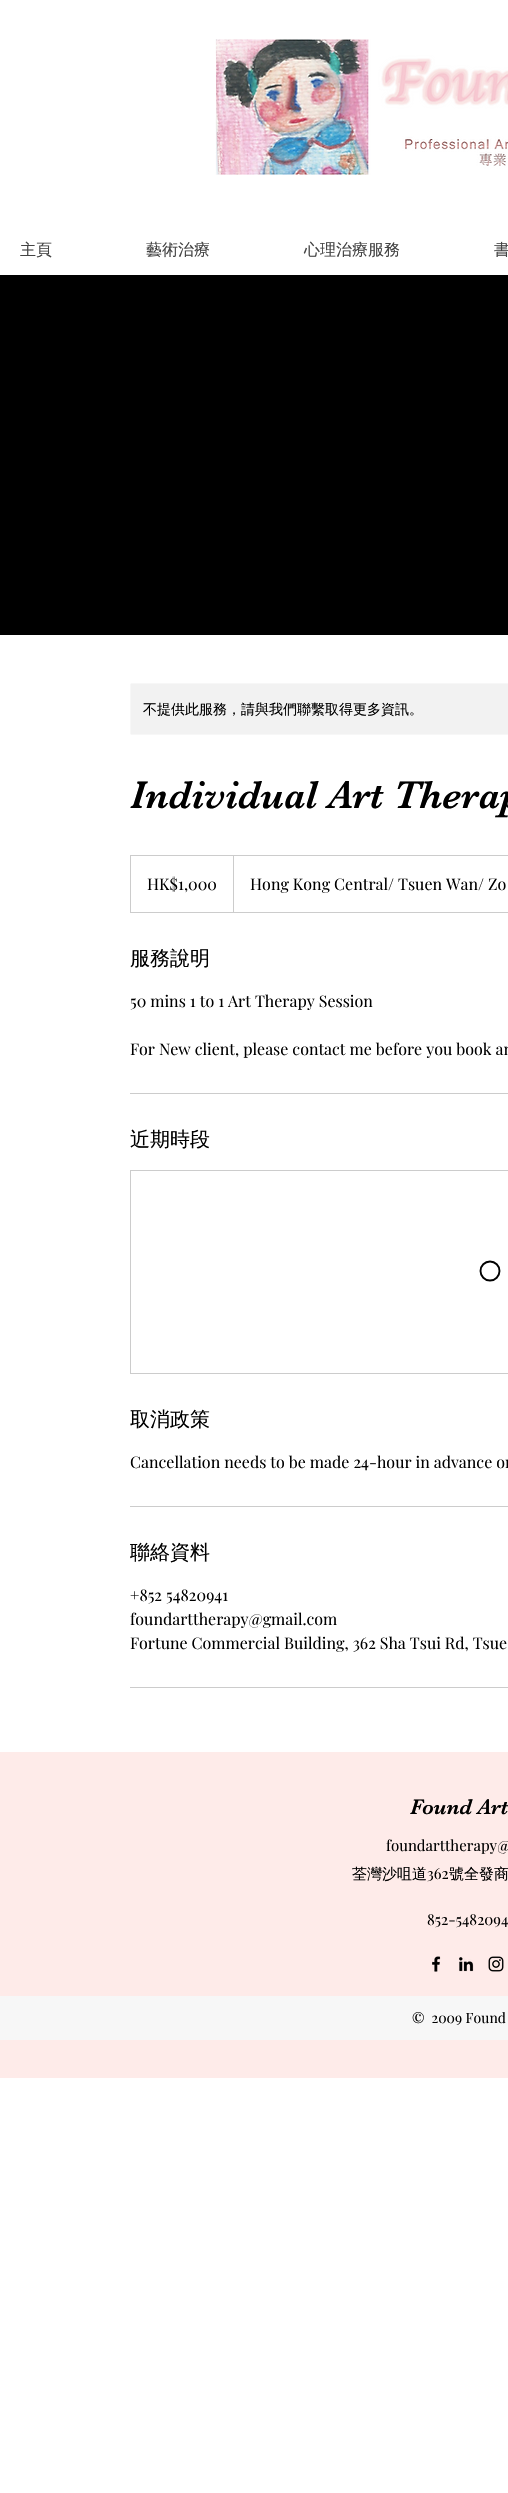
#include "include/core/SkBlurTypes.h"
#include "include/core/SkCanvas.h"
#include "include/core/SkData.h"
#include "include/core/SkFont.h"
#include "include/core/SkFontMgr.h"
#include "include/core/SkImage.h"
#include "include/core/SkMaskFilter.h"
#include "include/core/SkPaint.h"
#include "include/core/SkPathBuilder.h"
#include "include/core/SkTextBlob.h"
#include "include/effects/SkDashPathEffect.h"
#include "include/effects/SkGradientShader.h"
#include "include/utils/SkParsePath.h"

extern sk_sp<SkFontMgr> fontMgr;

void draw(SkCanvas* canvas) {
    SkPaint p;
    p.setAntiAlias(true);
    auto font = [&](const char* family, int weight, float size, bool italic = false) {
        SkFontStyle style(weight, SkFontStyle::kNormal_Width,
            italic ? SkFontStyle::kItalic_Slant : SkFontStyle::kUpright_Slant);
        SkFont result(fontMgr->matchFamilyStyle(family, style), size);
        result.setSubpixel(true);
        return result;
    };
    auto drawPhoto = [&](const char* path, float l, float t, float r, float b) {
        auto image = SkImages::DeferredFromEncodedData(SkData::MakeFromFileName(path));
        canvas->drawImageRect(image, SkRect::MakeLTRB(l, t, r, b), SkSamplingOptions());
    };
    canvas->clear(0xFFFFFFFF);
    drawPhoto("media/1.png", 215, 39, 508, 175);
    auto font1 = font("WenQuanYi Zen Hei", 500, 16);
    p.setColor(0xFF444444);
    {
        const struct { const char* s; float x, y; } items[] = {
            {"主頁", 20, 255},
            {"藝術治療", 146, 255},
            {"心理治療服務", 304, 255},
            {"書", 494, 255},
        };
        for (auto [s, x, y] : items) {
            canvas->drawString(s, x, y, font1, p);
        }
    }
    p.setColor(0xFF000000);
    canvas->drawRect(SkRect::MakeLTRB(0, 275, 508, 635), p);
    p.setColor(0xFFF2F2F2);
    canvas->drawRoundRect(SkRect::MakeLTRB(130.5f, 683.5f, 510.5f, 734.5f), 1.5f, 1.5f, p);
    p.setStyle(SkPaint::kStroke_Style);
    p.setStrokeWidth(1);
    p.setColor(0xFFF7F7F7);
    canvas->drawRoundRect(SkRect::MakeLTRB(130.5f, 683.5f, 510.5f, 734.5f), 1.5f, 1.5f, p);
    auto font2 = font("WenQuanYi Zen Hei", 500, 14);
    p.setStyle(SkPaint::kFill_Style);
    p.setColor(0xFF000000);
    canvas->drawString("不提供此服務，請與我們聯繫取得更多資訊。", 143, 714, font2, p);
    auto font3 = font("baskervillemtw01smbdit", 400, 40);
    canvas->drawString("Individual Art Therap", 130, 808, font3, p);
    p.setStyle(SkPaint::kStroke_Style);
    p.setColor(0xFFCCCCCC);
    canvas->drawRect(SkRect::MakeLTRB(130.5f, 855.5f, 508.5f, 912.5f), p);
    auto font4 = font("Playfair Display", 400, 16);
    p.setStyle(SkPaint::kFill_Style);
    p.setColor(0xFF000000);
    canvas->drawString("HK$1,000", 147, 890, font4, p);
    p.setColor(0xFFCCCCCC);
    canvas->drawPath(SkPathBuilder().moveTo(233, 912).lineTo(233, 855).lineTo(234, 856).lineTo(234, 912).close().detach(), p);
    p.setColor(0xFF000000);
    canvas->drawString("Hong Kong Central/ Tsuen Wan/ Zo", 250, 890, font4, p);
    auto font5 = font("WenQuanYi Zen Hei", 500, 20);
    canvas->drawString("服務說明", 130, 965, font5, p);
    canvas->drawString("50 mins 1 to 1 Art Therapy Session", 130, 1007, font4, p);
    canvas->drawString("For New client, please contact me before you book an", 130, 1055, font4, p);
    p.setColor(0xFFCCCCCC);
    canvas->drawRect(SkRect::MakeLTRB(130, 1093, 508, 1094), p);
    p.setColor(0xFF000000);
    canvas->drawString("近期時段", 130, 1146, font5, p);
    p.setStyle(SkPaint::kStroke_Style);
    p.setColor(0xFFCCCCCC);
    canvas->drawRect(SkRect::MakeLTRB(130.5f, 1170.5f, 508.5f, 1373.5f), p);
    p.setStrokeWidth(1.9f);
    p.setColor(0xFF000000);
    canvas->drawCircle(490, 1271, 9.5f, p);
    p.setStyle(SkPaint::kFill_Style);
    canvas->drawString("取消政策", 130, 1426, font5, p);
    canvas->drawString("Cancellation needs to be made 24-hour in advance or", 130, 1468, font4, p);
    p.setColor(0xFFCCCCCC);
    canvas->drawRect(SkRect::MakeLTRB(130, 1506, 508, 1507), p);
    p.setColor(0xFF000000);
    canvas->drawString("聯絡資料", 130, 1559, font5, p);
    {
        const struct { const char* s; float x, y; } items[] = {
            {"+852 54820941", 130, 1601},
            {"foundarttherapy@gmail.com", 130, 1625},
            {"Fortune Commercial Building, 362 Sha Tsui Rd, Tsue", 130, 1649},
        };
        for (auto [s, x, y] : items) {
            canvas->drawString(s, x, y, font4, p);
        }
    }
    p.setColor(0xFFCCCCCC);
    canvas->drawRect(SkRect::MakeLTRB(130, 1687, 508, 1688), p);
    p.setColor(0xFFFEEBE9);
    canvas->drawRect(SkRect::MakeLTRB(0, 1752, 508, 2078), p);
    auto font6 = font("baskervillemtw01smbdit", 400, 22);
    p.setColor(0xFF000000);
    canvas->drawString("Found Art", 410, 1814, font6, p);
    auto font7 = font("Playfair Display", 400, 15);
    canvas->drawString("foundarttherapy@", 386, 1851, font7, p);
    auto font8 = font("WenQuanYi Zen Hei", 500, 15);
    canvas->drawString("荃灣沙咀道", 352, 1879, font8, p);
    canvas->drawString("362", 427, 1879, font7, p);
    canvas->drawString("號全發商", 449, 1879, font8, p);
    canvas->drawString("852-5482094", 427, 1925, font7, p);
    drawPhoto("media/2.png", 432, 1956, 441, 1972);
    drawPhoto("media/3.png", 459, 1957, 474, 1972);
    drawPhoto("media/4.png", 488, 1956, 504, 1972);
    p.setColor(0xFFF7F7F7);
    canvas->drawRect(SkRect::MakeLTRB(0, 1996, 508, 2040), p);
    auto font9 = font("Playfair Display", 400, 14);
    p.setColor(0xFF000000);
    canvas->drawString("©  2009 Found", 412, 2023, font9, p);
}
